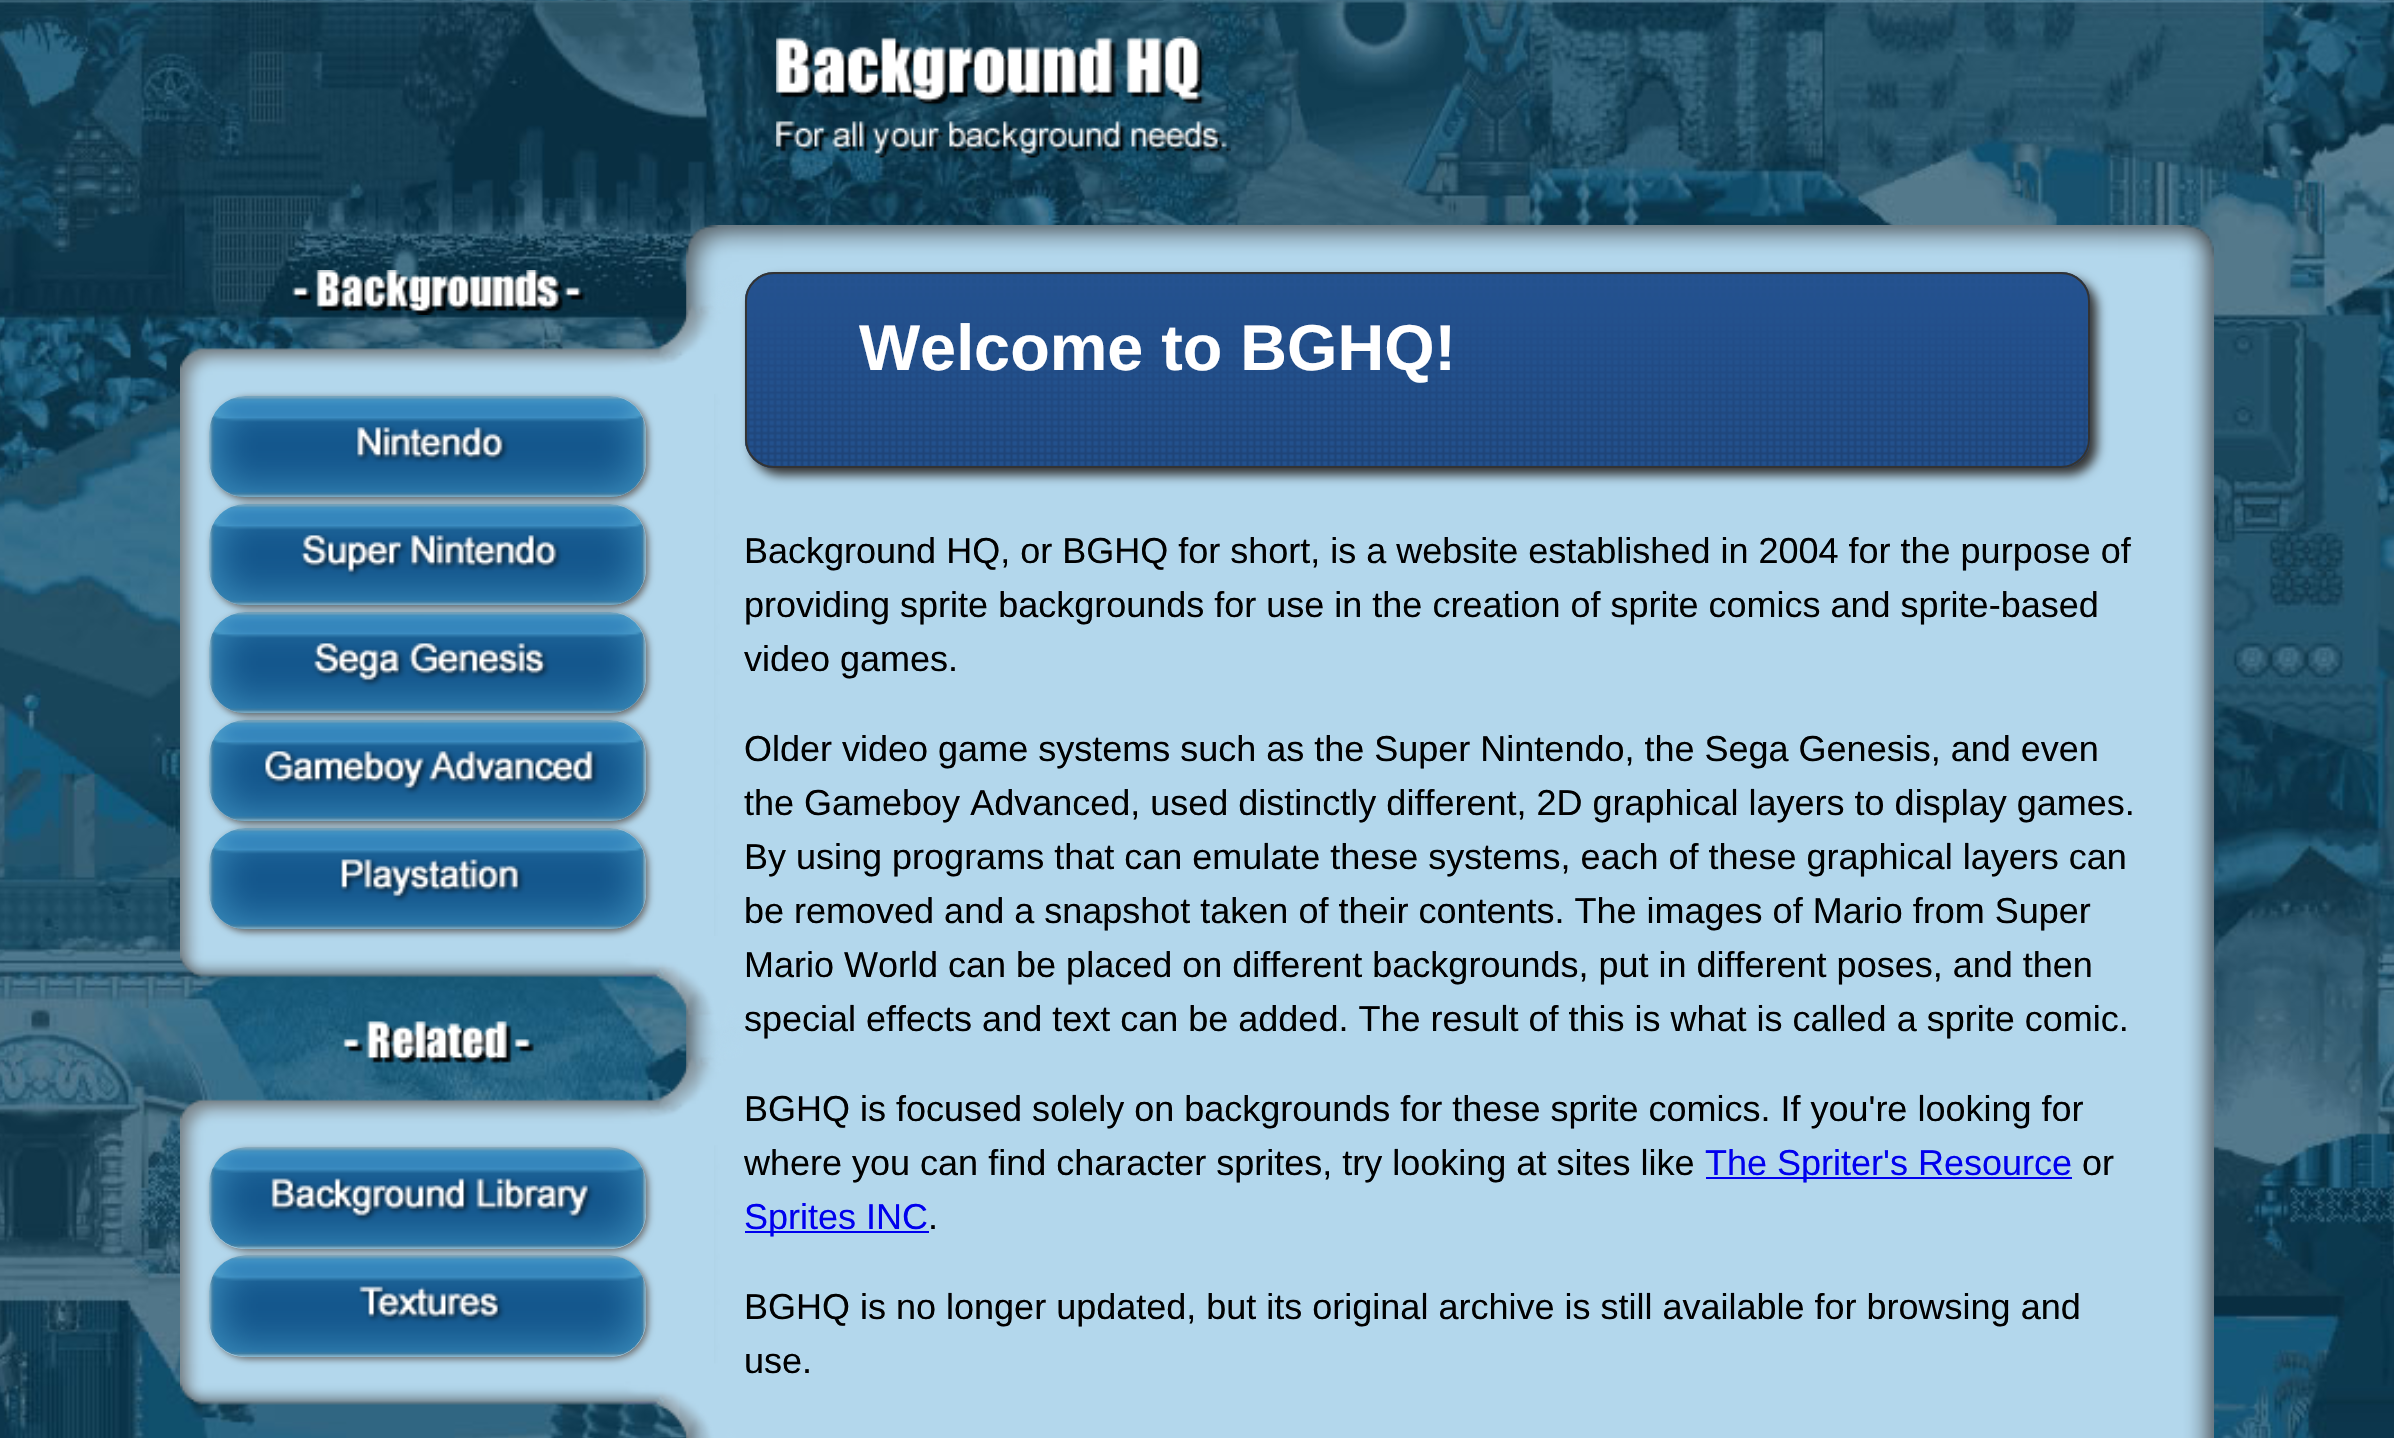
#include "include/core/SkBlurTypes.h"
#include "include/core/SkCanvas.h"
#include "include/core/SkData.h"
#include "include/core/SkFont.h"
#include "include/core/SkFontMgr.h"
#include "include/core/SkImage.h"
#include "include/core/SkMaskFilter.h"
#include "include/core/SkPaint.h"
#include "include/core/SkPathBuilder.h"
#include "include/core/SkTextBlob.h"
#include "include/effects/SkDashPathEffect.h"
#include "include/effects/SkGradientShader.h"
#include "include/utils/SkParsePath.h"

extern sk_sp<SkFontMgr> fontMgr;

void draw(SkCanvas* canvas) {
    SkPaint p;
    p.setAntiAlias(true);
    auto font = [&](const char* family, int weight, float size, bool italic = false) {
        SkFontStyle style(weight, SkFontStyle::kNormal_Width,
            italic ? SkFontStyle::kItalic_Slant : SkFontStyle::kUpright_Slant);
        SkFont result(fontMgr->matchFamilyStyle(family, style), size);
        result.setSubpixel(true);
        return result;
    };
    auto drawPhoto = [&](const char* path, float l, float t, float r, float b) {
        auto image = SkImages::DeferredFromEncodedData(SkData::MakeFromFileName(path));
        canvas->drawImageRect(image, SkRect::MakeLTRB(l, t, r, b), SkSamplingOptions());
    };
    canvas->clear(0xFFFFFFFF);
    drawPhoto("media/1.png", 0, 0, 2394, 1438);
    drawPhoto("media/2.png", 686, 225, 783, 270);
    drawPhoto("media/3.png", 2118, 225, 2214, 270);
    drawPhoto("media/4.png", 783, 225, 2118, 270);
    drawPhoto("media/5.png", 776, 36, 1231, 158);
    drawPhoto("media/6.png", 2158, 270, 2214, 1438);
    drawPhoto("media/7.png", 686, 270, 743, 1438);
    drawPhoto("media/8.png", 292, 270, 585, 315);
    drawPhoto("media/9.png", 180, 275, 743, 394);
    drawPhoto("media/10.png", 180, 936, 743, 1033);
    drawPhoto("media/11.png", 180, 393, 714, 936);
    canvas->save();
    canvas->clipPath(SkPathBuilder(SkPathFillType::kEvenOdd).moveTo(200, 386).lineTo(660, 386).lineTo(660, 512).lineTo(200, 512).close().moveTo(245, 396).lineTo(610, 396).cubicTo(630, 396, 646, 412, 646, 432).lineTo(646, 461).cubicTo(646, 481, 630, 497, 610, 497).lineTo(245, 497).cubicTo(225, 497, 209, 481, 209, 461).lineTo(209, 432).cubicTo(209, 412, 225, 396, 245, 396).close().detach(), true);
    p.setColor(0xFF666666);
    p.setMaskFilter(SkMaskFilter::MakeBlur(kNormal_SkBlurStyle, 3.5f));
    canvas->drawRoundRect(SkRect::MakeLTRB(212, 398, 648, 500), 36, 36, p);
    p.setMaskFilter(nullptr);
    canvas->restore();
    drawPhoto("media/12.png", 209, 396, 646, 498);
    canvas->save();
    canvas->clipPath(SkPathBuilder(SkPathFillType::kEvenOdd).moveTo(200, 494).lineTo(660, 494).lineTo(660, 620).lineTo(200, 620).close().moveTo(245, 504).lineTo(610, 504).cubicTo(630, 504, 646, 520, 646, 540).lineTo(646, 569).cubicTo(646, 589, 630, 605, 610, 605).lineTo(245, 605).cubicTo(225, 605, 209, 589, 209, 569).lineTo(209, 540).cubicTo(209, 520, 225, 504, 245, 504).close().detach(), true);
    p.setMaskFilter(SkMaskFilter::MakeBlur(kNormal_SkBlurStyle, 3.5f));
    canvas->drawRoundRect(SkRect::MakeLTRB(212, 506, 648, 608), 36, 36, p);
    p.setMaskFilter(nullptr);
    canvas->restore();
    drawPhoto("media/13.png", 209, 504, 646, 606);
    canvas->save();
    canvas->clipPath(SkPathBuilder(SkPathFillType::kEvenOdd).moveTo(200, 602).lineTo(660, 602).lineTo(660, 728).lineTo(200, 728).close().moveTo(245, 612).lineTo(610, 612).cubicTo(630, 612, 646, 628, 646, 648).lineTo(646, 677).cubicTo(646, 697, 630, 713, 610, 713).lineTo(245, 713).cubicTo(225, 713, 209, 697, 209, 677).lineTo(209, 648).cubicTo(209, 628, 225, 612, 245, 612).close().detach(), true);
    p.setMaskFilter(SkMaskFilter::MakeBlur(kNormal_SkBlurStyle, 3.5f));
    canvas->drawRoundRect(SkRect::MakeLTRB(212, 614, 648, 716), 36, 36, p);
    p.setMaskFilter(nullptr);
    canvas->restore();
    drawPhoto("media/14.png", 209, 612, 646, 714);
    canvas->save();
    canvas->clipPath(SkPathBuilder(SkPathFillType::kEvenOdd).moveTo(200, 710).lineTo(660, 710).lineTo(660, 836).lineTo(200, 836).close().moveTo(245, 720).lineTo(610, 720).cubicTo(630, 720, 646, 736, 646, 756).lineTo(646, 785).cubicTo(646, 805, 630, 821, 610, 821).lineTo(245, 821).cubicTo(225, 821, 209, 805, 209, 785).lineTo(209, 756).cubicTo(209, 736, 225, 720, 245, 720).close().detach(), true);
    p.setMaskFilter(SkMaskFilter::MakeBlur(kNormal_SkBlurStyle, 3.5f));
    canvas->drawRoundRect(SkRect::MakeLTRB(212, 722, 648, 824), 36, 36, p);
    p.setMaskFilter(nullptr);
    canvas->restore();
    drawPhoto("media/15.png", 209, 720, 646, 822);
    canvas->save();
    canvas->clipPath(SkPathBuilder(SkPathFillType::kEvenOdd).moveTo(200, 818).lineTo(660, 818).lineTo(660, 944).lineTo(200, 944).close().moveTo(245, 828).lineTo(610, 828).cubicTo(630, 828, 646, 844, 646, 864).lineTo(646, 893).cubicTo(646, 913, 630, 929, 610, 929).lineTo(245, 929).cubicTo(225, 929, 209, 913, 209, 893).lineTo(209, 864).cubicTo(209, 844, 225, 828, 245, 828).close().detach(), true);
    p.setMaskFilter(SkMaskFilter::MakeBlur(kNormal_SkBlurStyle, 3.5f));
    canvas->drawRoundRect(SkRect::MakeLTRB(212, 830, 648, 932), 36, 36, p);
    p.setMaskFilter(nullptr);
    canvas->restore();
    drawPhoto("media/16.png", 209, 828, 646, 930);
    drawPhoto("media/17.png", 343, 1021, 534, 1065);
    drawPhoto("media/18.png", 180, 1027, 743, 1146);
    drawPhoto("media/19.png", 180, 1363, 743, 1438);
    drawPhoto("media/20.png", 180, 1145, 714, 1364);
    canvas->save();
    canvas->clipPath(SkPathBuilder(SkPathFillType::kEvenOdd).moveTo(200, 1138).lineTo(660, 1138).lineTo(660, 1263).lineTo(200, 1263).close().moveTo(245, 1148).lineTo(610, 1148).cubicTo(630, 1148, 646, 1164, 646, 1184).lineTo(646, 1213).cubicTo(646, 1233, 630, 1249, 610, 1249).lineTo(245, 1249).cubicTo(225, 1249, 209, 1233, 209, 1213).lineTo(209, 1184).cubicTo(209, 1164, 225, 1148, 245, 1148).close().detach(), true);
    p.setMaskFilter(SkMaskFilter::MakeBlur(kNormal_SkBlurStyle, 3.5f));
    canvas->drawRoundRect(SkRect::MakeLTRB(212, 1150, 648, 1251), 36, 36, p);
    p.setMaskFilter(nullptr);
    canvas->restore();
    drawPhoto("media/21.png", 209, 1147, 646, 1249);
    canvas->save();
    canvas->clipPath(SkPathBuilder(SkPathFillType::kEvenOdd).moveTo(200, 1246).lineTo(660, 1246).lineTo(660, 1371).lineTo(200, 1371).close().moveTo(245, 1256).lineTo(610, 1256).cubicTo(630, 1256, 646, 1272, 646, 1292).lineTo(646, 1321).cubicTo(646, 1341, 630, 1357, 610, 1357).lineTo(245, 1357).cubicTo(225, 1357, 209, 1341, 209, 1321).lineTo(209, 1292).cubicTo(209, 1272, 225, 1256, 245, 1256).close().detach(), true);
    p.setMaskFilter(SkMaskFilter::MakeBlur(kNormal_SkBlurStyle, 3.5f));
    canvas->drawRoundRect(SkRect::MakeLTRB(212, 1258, 648, 1359), 36, 36, p);
    p.setMaskFilter(nullptr);
    canvas->restore();
    drawPhoto("media/22.png", 209, 1255, 646, 1357);
    p.setColor(0xFFB3D7EC);
    canvas->drawRect(SkRect::MakeLTRB(743, 270, 2158, 1438), p);
    p.setColor(0xFF333333);
    p.setMaskFilter(SkMaskFilter::MakeBlur(kNormal_SkBlurStyle, 5.5f));
    canvas->drawRoundRect(SkRect::MakeLTRB(752, 279, 2097, 475), 29, 29, p);
    p.setMaskFilter(nullptr);
    p.setColor(0xFF204982);
    canvas->drawRoundRect(SkRect::MakeLTRB(745, 272, 2090, 468), 29, 29, p);
    drawPhoto("media/23.png", 744, 274, 2091, 468);
    p.setStyle(SkPaint::kStroke_Style);
    p.setStrokeWidth(2);
    p.setColor(0xFF333333);
    canvas->drawRoundRect(SkRect::MakeLTRB(746, 273, 2089, 467), 28, 28, p);
    auto font1 = font("Liberation Sans", 700, 64.75f);
    p.setStyle(SkPaint::kFill_Style);
    p.setColor(0xFFFFFFFF);
    canvas->drawString("Welcome to BGHQ!", 859, 370, font1, p);
    auto font2 = font("Liberation Sans", 400, 36);
    p.setColor(0xFF000000);
    {
        const struct { const char* s; float x, y; } items[] = {
            {"Background HQ, or BGHQ for short, is a website established in 2004 for the purpose of", 744, 563},
            {"providing sprite backgrounds for use in the creation of sprite comics and sprite-based", 744, 617},
            {"video games.", 744, 671},
            {"Older video game systems such as the Super Nintendo, the Sega Genesis, and even", 744, 761},
            {"the Gameboy Advanced, used distinctly different, 2D graphical layers to display games.", 744, 815},
            {"By using programs that can emulate these systems, each of these graphical layers can", 744, 869},
            {"be removed and a snapshot taken of their contents. The images of Mario from Super", 744, 923},
            {"Mario World can be placed on different backgrounds, put in different poses, and then", 744, 977},
            {"special effects and text can be added. The result of this is what is called a sprite comic.", 744, 1031},
            {"BGHQ is focused solely on backgrounds for these sprite comics. If you're looking for", 744, 1121},
            {"where you can find character sprites, try looking at sites like", 744, 1175},
        };
        for (auto [s, x, y] : items) {
            canvas->drawString(s, x, y, font2, p);
        }
    }
    p.setColor(0xFF0000EE);
    canvas->drawRect(SkRect::MakeLTRB(1706, 1177, 2072, 1179), p);
    canvas->drawString("The Spriter's Resource", 1705, 1175, font2, p);
    p.setColor(0xFF000000);
    canvas->drawString("or", 2082, 1175, font2, p);
    p.setColor(0xFF0000EE);
    canvas->drawRect(SkRect::MakeLTRB(745, 1231, 929, 1233), p);
    canvas->drawString("Sprites INC", 744, 1229, font2, p);
    p.setColor(0xFF000000);
    {
        const struct { const char* s; float x, y; } items[] = {
            {".", 928, 1229},
            {"BGHQ is no longer updated, but its original archive is still available for browsing and", 744, 1319},
            {"use.", 744, 1373},
        };
        for (auto [s, x, y] : items) {
            canvas->drawString(s, x, y, font2, p);
        }
    }
}
